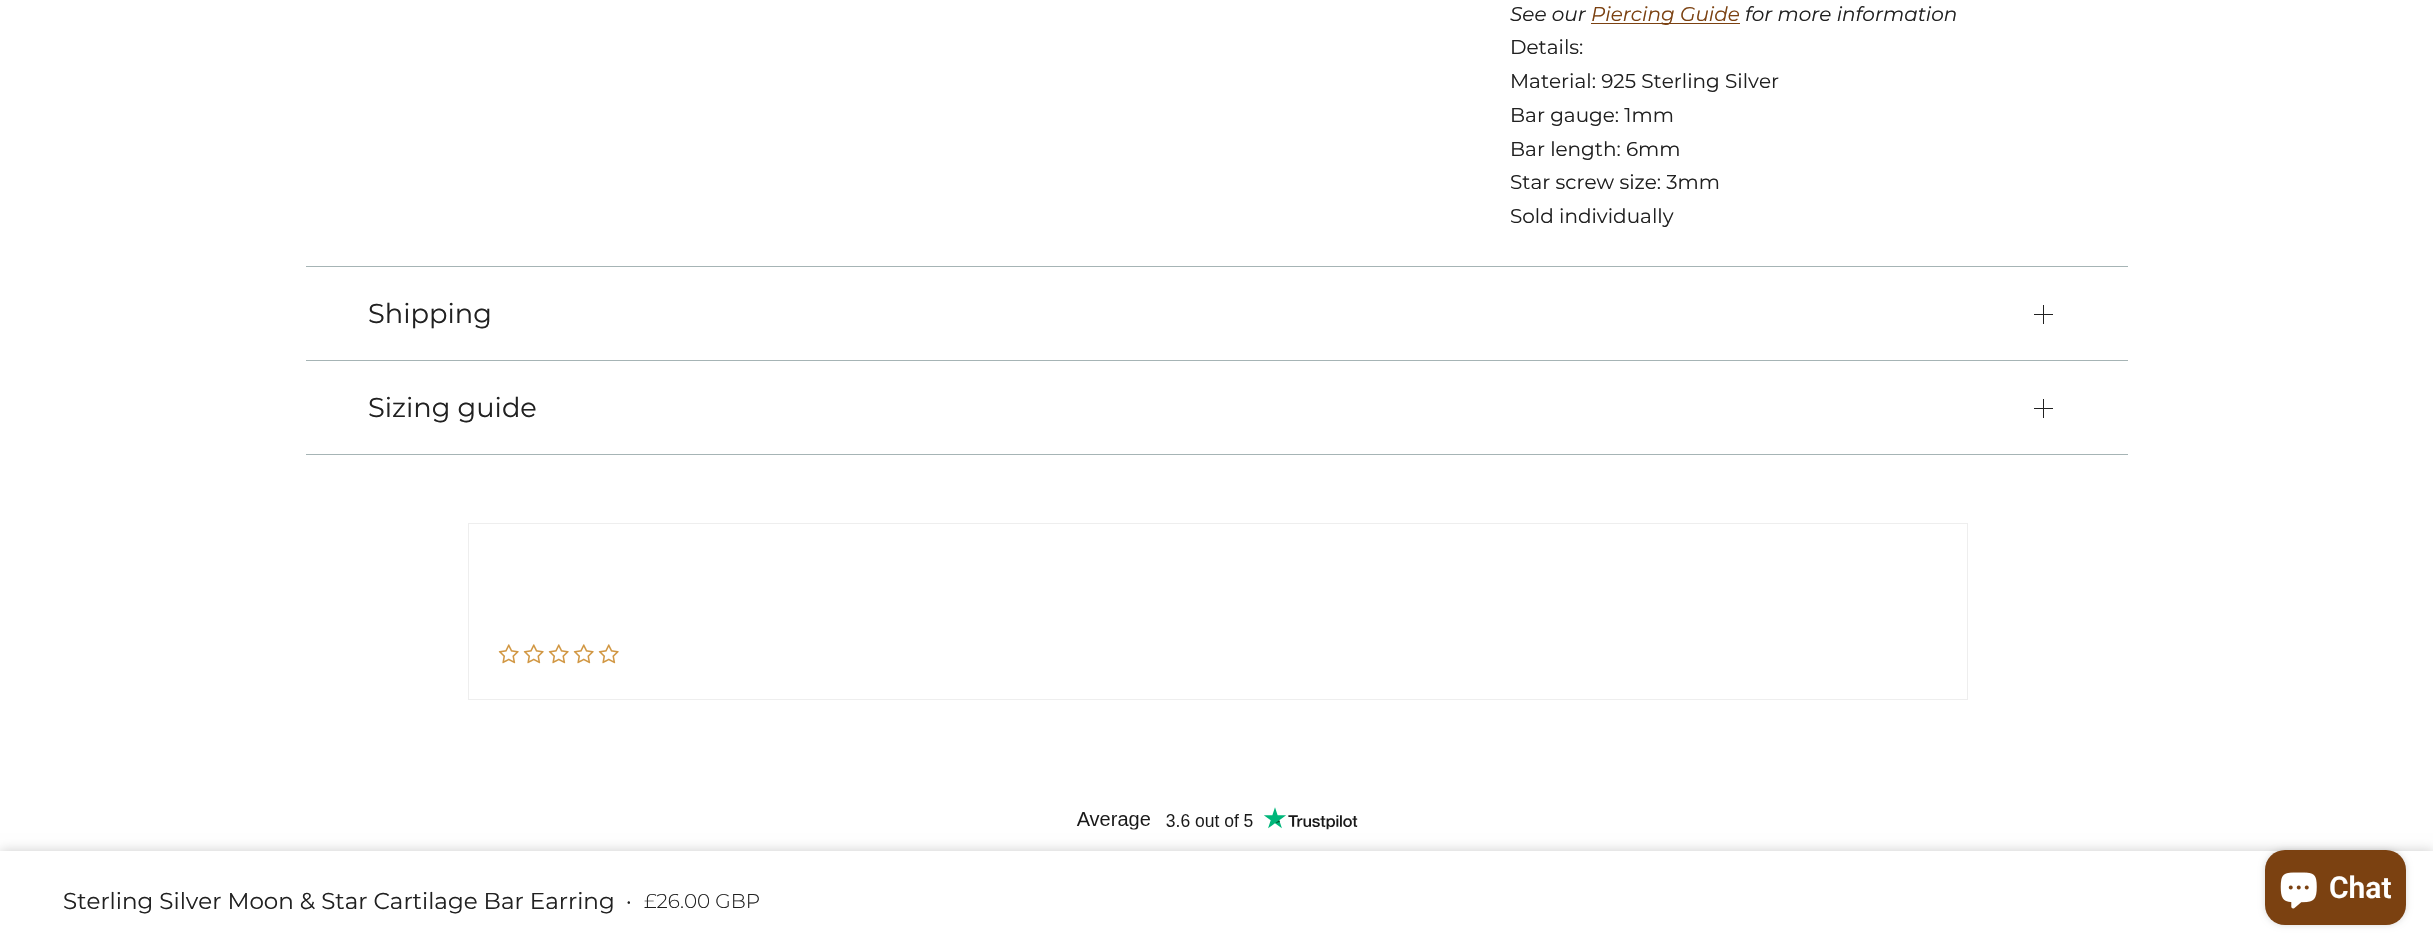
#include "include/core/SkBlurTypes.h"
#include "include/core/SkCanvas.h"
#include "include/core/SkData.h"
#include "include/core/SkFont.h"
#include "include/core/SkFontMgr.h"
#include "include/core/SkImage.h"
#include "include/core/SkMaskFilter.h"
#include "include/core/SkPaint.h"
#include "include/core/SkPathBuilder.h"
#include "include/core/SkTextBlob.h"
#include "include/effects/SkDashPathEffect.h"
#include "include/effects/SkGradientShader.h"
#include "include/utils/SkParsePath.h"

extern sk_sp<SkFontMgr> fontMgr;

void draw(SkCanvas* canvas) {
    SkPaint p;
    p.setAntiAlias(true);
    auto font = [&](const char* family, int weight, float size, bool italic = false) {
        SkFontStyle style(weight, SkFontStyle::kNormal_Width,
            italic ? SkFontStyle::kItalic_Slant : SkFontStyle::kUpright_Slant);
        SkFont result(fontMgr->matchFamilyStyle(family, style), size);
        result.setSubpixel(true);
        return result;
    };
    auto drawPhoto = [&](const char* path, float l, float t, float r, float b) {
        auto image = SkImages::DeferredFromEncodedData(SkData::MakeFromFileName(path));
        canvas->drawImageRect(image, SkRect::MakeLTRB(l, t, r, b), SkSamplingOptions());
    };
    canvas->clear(0xFFFFFFFF);
    auto font1 = font("Montserrat", 400, 20, true);
    p.setColor(0xFF212121);
    canvas->drawString("See our", 1510, 21, font1, p);
    p.setColor(0xFF7B4111);
    canvas->drawRect(SkRect::MakeLTRB(1591, 23, 1740, 24), p);
    canvas->drawString("Piercing Guide", 1591, 21, font1, p);
    p.setColor(0xFF212121);
    canvas->drawString("for more information", 1745, 21, font1, p);
    auto font2 = font("Montserrat", 400, 20);
    {
        const struct { const char* s; float x, y; } items[] = {
            {"Details:", 1510, 54},
            {"Material: 925 Sterling Silver", 1510, 88},
            {"Bar gauge: 1mm", 1510, 122},
            {"Bar length: 6mm", 1510, 156},
            {"Star screw size: 3mm", 1510, 189},
            {"Sold individually", 1510, 223},
        };
        for (auto [s, x, y] : items) {
            canvas->drawString(s, x, y, font2, p);
        }
    }
    p.setColor(0x33000000);
    p.setMaskFilter(SkMaskFilter::MakeBlur(kNormal_SkBlurStyle, 6));
    canvas->drawRect(SkRect::MakeLTRB(0, 851, 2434, 951), p);
    p.setMaskFilter(nullptr);
    p.setColor(0xFFFFFFFF);
    canvas->drawRect(SkRect::MakeLTRB(0, 851, 2433, 951), p);
    auto font3 = font("Montserrat", 400, 23);
    p.setColor(0xFF212121);
    canvas->drawString("Sterling Silver Moon & Star Cartilage Bar Earring", 63, 909, font3, p);
    auto font4 = font("Montserrat", 300, 20);
    canvas->drawString("•", 626, 908, font4, p);
    canvas->drawString("£26.00 GBP", 644, 908, font4, p);
    p.setColor(0xFFA6B4B5);
    canvas->drawRect(SkRect::MakeLTRB(306, 266, 2128, 267), p);
    auto font5 = font("Montserrat", 400, 27.25f);
    p.setColor(0xFF212121);
    canvas->drawString("Shipping", 368, 323, font5, p);
    {
        const struct { float l, t, r, b; SkColor color; } items[] = {
            {2034, 314, 2053, 315, 0xFF212121},
            {2043, 305, 2044, 324, 0xFF212121},
            {306, 360, 2128, 361, 0xFFA6B4B5},
            {306, 454, 2128, 455, 0xFFA6B4B5},
        };
        for (auto [l, t, r, b, color] : items) {
            p.setColor(color);
            canvas->drawRect(SkRect::MakeLTRB(l, t, r, b), p);
        }
    }
    p.setColor(0xFF212121);
    canvas->drawString("Sizing guide", 368, 417, font5, p);
    canvas->drawRect(SkRect::MakeLTRB(2034, 408, 2053, 409), p);
    canvas->drawRect(SkRect::MakeLTRB(2043, 399, 2044, 418), p);
    p.setStyle(SkPaint::kStroke_Style);
    p.setStrokeWidth(1);
    p.setColor(0xFFEEEEEE);
    canvas->drawRect(SkRect::MakeLTRB(468.5f, 523.5f, 1967.5f, 699.5f), p);
    drawPhoto("media/1.png", 498, 644, 519, 664);
    drawPhoto("media/1.png", 523, 644, 544, 664);
    drawPhoto("media/1.png", 548, 644, 569, 664);
    drawPhoto("media/1.png", 573, 644, 594, 664);
    drawPhoto("media/1.png", 598, 644, 619, 664);
    drawPhoto("media/2.png", 1076, 807, 1358, 830);
    p.setStyle(SkPaint::kFill_Style);
    p.setColor(0x26000000);
    p.setMaskFilter(SkMaskFilter::MakeBlur(kNormal_SkBlurStyle, 3));
    canvas->drawRoundRect(SkRect::MakeLTRB(2265, 850, 2406, 925), 20, 20, p);
    p.setMaskFilter(nullptr);
    p.setColor(0xFF7B4111);
    canvas->drawRoundRect(SkRect::MakeLTRB(2265, 850, 2406, 925), 20, 20, p);
    drawPhoto("media/3.png", 2280, 872, 2317, 909);
    auto font6 = font("Roboto", 600, 30);
    p.setColor(0xFFFFFFFF);
    canvas->drawString("Chat", 2329, 898, font6, p);
}
